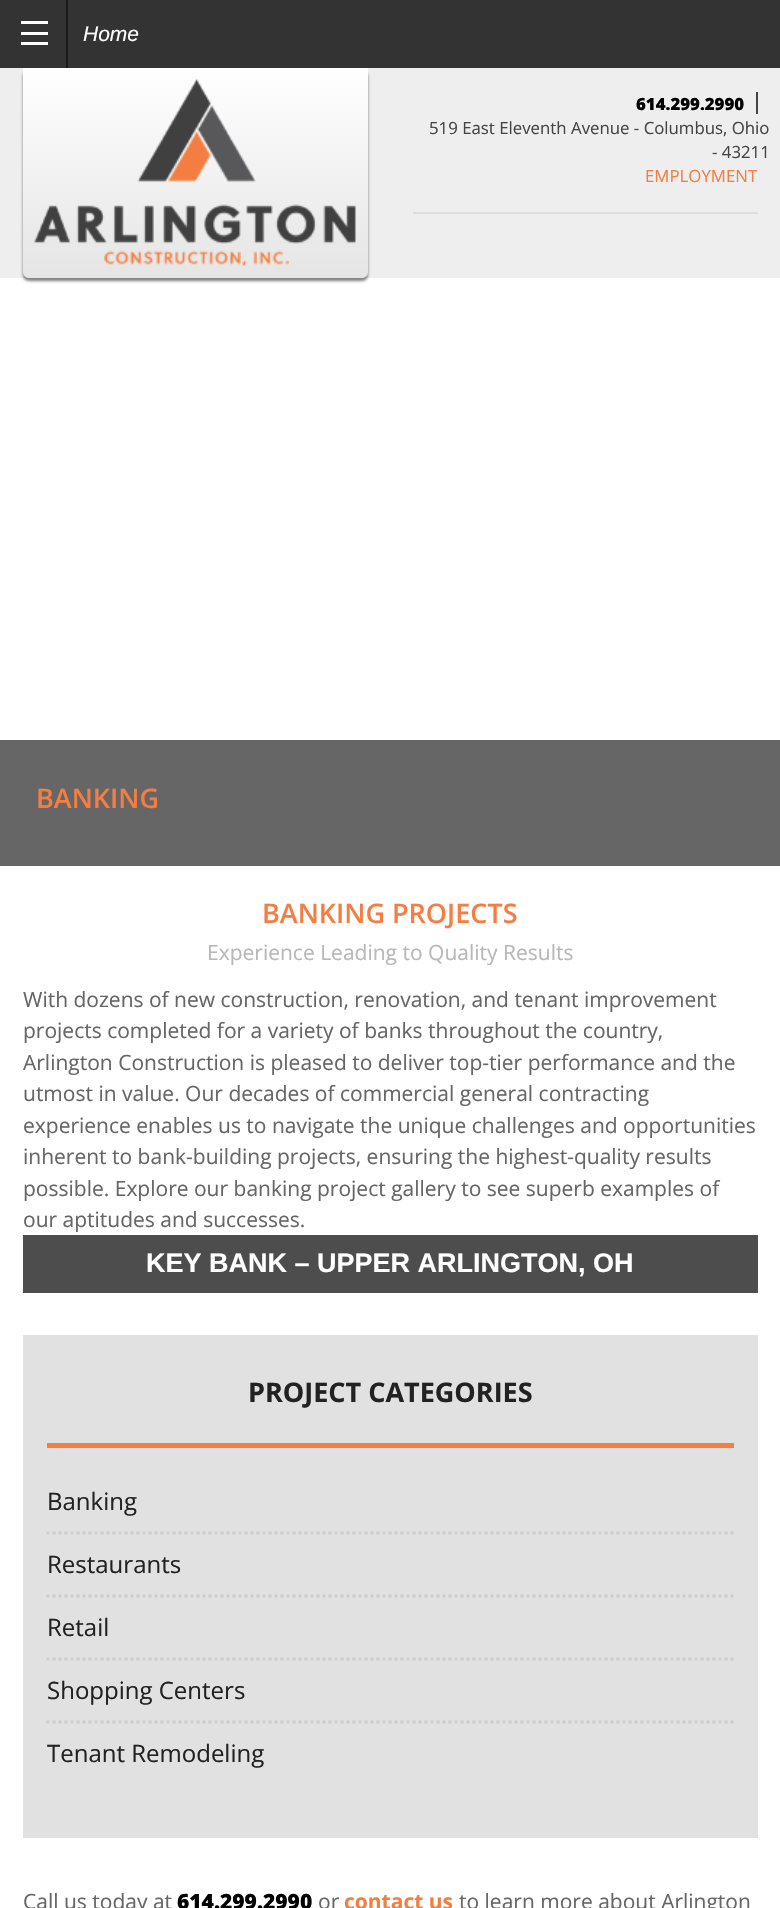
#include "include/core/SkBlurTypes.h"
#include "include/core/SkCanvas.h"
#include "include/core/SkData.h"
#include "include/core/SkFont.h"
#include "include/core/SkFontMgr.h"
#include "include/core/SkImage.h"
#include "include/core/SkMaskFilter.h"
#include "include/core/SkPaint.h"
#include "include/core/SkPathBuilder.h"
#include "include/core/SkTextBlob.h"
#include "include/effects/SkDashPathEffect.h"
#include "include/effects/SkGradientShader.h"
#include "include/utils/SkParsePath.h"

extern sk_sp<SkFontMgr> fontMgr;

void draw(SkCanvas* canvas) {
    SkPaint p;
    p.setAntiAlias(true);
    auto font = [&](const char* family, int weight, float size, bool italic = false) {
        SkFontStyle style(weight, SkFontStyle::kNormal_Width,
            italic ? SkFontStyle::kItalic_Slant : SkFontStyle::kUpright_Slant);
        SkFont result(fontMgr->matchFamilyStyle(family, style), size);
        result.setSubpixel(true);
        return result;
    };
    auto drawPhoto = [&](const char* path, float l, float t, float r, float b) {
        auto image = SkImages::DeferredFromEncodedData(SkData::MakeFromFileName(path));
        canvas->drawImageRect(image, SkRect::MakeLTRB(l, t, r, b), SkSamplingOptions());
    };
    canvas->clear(0xFFFFFFFF);
    {
        const struct { float l, t, r, b; SkColor color; } items[] = {
            {0, 0, 780, 68, 0xFF333333},
            {66, 0, 68, 68, 0xFF1A1A1A},
            {21, 42, 48, 45, 0xFFFFFFFF},
            {21, 32, 48, 35, 0xFFFFFFFF},
            {21, 21, 48, 24, 0xFFFFFFFF},
        };
        for (auto [l, t, r, b, color] : items) {
            p.setColor(color);
            canvas->drawRect(SkRect::MakeLTRB(l, t, r, b), p);
        }
    }
    auto font1 = font("Liberation Sans", 400, 21, true);
    canvas->drawString("Home", 83, 41, font1, p);
    p.setColor(0xFFEEEEEE);
    canvas->drawRect(SkRect::MakeLTRB(0, 68, 780, 278), p);
    p.setColor(0x80000000);
    p.setMaskFilter(SkMaskFilter::MakeBlur(kNormal_SkBlurStyle, 1.5f));
    canvas->drawRoundRect(SkRect::MakeLTRB(23, 71, 368, 281), 6, 6, p);
    p.setMaskFilter(nullptr);
    {
        const SkColor colors[] = {0xFFFFFFFF, 0xFFE5E5E5};
        const float stops[] = {0, 1};
        const SkPoint ends[] = {{195, 67}, {195, 278}};
        p.setShader(SkGradientShader::MakeLinear(ends, colors, stops, 2, SkTileMode::kClamp));
        p.setAlpha(255);
    }
    canvas->drawPath(SkPathBuilder().moveTo(23, 68).lineTo(368, 68).lineTo(368, 272).cubicTo(368, 275.5f, 365.5f, 278, 362, 278).lineTo(29, 278).cubicTo(25.5f, 278, 23, 275.5f, 23, 272).close().detach(), p);
    drawPhoto("media/1.png", 34, 79, 356, 266);
    p.setShader(nullptr);
    p.setColor(0xFFDDDDDD);
    canvas->drawRect(SkRect::MakeLTRB(413, 212, 758, 214), p);
    auto font2 = font("Open Sans", 800, 16.8f);
    p.setColor(0xFF000000);
    canvas->drawString("614.299.2990", 636, 110, font2, p);
    p.setColor(0xFF444444);
    canvas->drawRect(SkRect::MakeLTRB(756, 92, 758, 114), p);
    auto font3 = font("Open Sans", 400, 16.8f);
    canvas->drawString("519 East Eleventh Avenue - Columbus, Ohio", 429, 134, font3, p);
    canvas->drawString("- 43211", 712, 158, font3, p);
    p.setColor(0xFFF47E42);
    canvas->drawString("EMPLOYMENT", 645, 182, font3, p);
    p.setColor(0xFF666666);
    canvas->drawRect(SkRect::MakeLTRB(0, 740, 780, 866), p);
    auto font4 = font("Open Sans", 600, 27);
    p.setColor(0xFFF47E42);
    canvas->drawString("BANKING", 36, 808, font4, p);
    canvas->drawString("BANKING PROJECTS", 262, 923, font4, p);
    auto font5 = font("Open Sans", 400, 21);
    p.setColor(0xFFB9B7B7);
    canvas->drawString("Experience Leading to Quality Results", 207, 960, font5, p);
    p.setColor(0xFF666666);
    {
        const struct { const char* s; float x, y; } items[] = {
            {"With dozens of new construction, renovation, and tenant improvement", 23, 1007},
            {"projects completed for a variety of banks throughout the country,", 23, 1038},
            {"Arlington Construction is pleased to deliver top-tier performance and the", 23, 1070},
            {"utmost in value. Our decades of commercial general contracting", 23, 1101},
            {"experience enables us to navigate the unique challenges and opportunities", 23, 1133},
            {"inherent to bank-building projects, ensuring the highest-quality results", 23, 1164},
            {"possible. Explore our banking project gallery to see superb examples of", 23, 1196},
            {"our aptitudes and successes.", 23, 1227},
        };
        for (auto [s, x, y] : items) {
            canvas->drawString(s, x, y, font5, p);
        }
    }
    p.setColor(0xFF4D4D4D);
    canvas->drawRect(SkRect::MakeLTRB(23, 1235, 758, 1293), p);
    auto font6 = font("Liberation Sans", 700, 27);
    p.setColor(0xFFFFFFFF);
    canvas->drawString("KEY BANK – UPPER ARLINGTON, OH", 146, 1272, font6, p);
    p.setColor(0xFFE1E1E1);
    canvas->drawRect(SkRect::MakeLTRB(23, 1335, 758, 1838), p);
    p.setColor(0xFFF47E42);
    canvas->drawRect(SkRect::MakeLTRB(47, 1443, 734, 1448), p);
    auto font7 = font("Open Sans", 700, 27);
    p.setColor(0xFF222222);
    canvas->drawString("PROJECT CATEGORIES", 248, 1402, font7, p);
    p.setStyle(SkPaint::kStroke_Style);
    p.setStrokeWidth(3);
    p.setColor(0xFFCCCCCC);
    p.setPathEffect(SkDashPathEffect::Make({{3, 3}}, 0));
    canvas->drawPath(SkPathBuilder().moveTo(46.5f, 1533).lineTo(733.5f, 1533).detach(), p);
    p.setPathEffect(nullptr);
    auto font8 = font("Open Sans", 400, 24);
    p.setStyle(SkPaint::kFill_Style);
    p.setColor(0xFF222222);
    canvas->drawString("Banking", 47, 1510, font8, p);
    p.setStyle(SkPaint::kStroke_Style);
    p.setColor(0xFFCCCCCC);
    p.setPathEffect(SkDashPathEffect::Make({{3, 3}}, 0));
    canvas->drawPath(SkPathBuilder().moveTo(46.5f, 1596).lineTo(733.5f, 1596).detach(), p);
    p.setPathEffect(nullptr);
    p.setStyle(SkPaint::kFill_Style);
    p.setColor(0xFF222222);
    canvas->drawString("Restaurants", 47, 1573, font8, p);
    p.setStyle(SkPaint::kStroke_Style);
    p.setColor(0xFFCCCCCC);
    p.setPathEffect(SkDashPathEffect::Make({{3, 3}}, 0));
    canvas->drawPath(SkPathBuilder().moveTo(46.5f, 1659).lineTo(733.5f, 1659).detach(), p);
    p.setPathEffect(nullptr);
    p.setStyle(SkPaint::kFill_Style);
    p.setColor(0xFF222222);
    canvas->drawString("Retail", 47, 1636, font8, p);
    p.setStyle(SkPaint::kStroke_Style);
    p.setColor(0xFFCCCCCC);
    p.setPathEffect(SkDashPathEffect::Make({{3, 3}}, 0));
    canvas->drawPath(SkPathBuilder().moveTo(46.5f, 1722).lineTo(733.5f, 1722).detach(), p);
    p.setPathEffect(nullptr);
    p.setStyle(SkPaint::kFill_Style);
    p.setColor(0xFF222222);
    canvas->drawString("Shopping Centers", 47, 1699, font8, p);
    canvas->drawString("Tenant Remodeling", 47, 1762, font8, p);
    p.setColor(0xFF666666);
    canvas->drawString("Call us today at", 23, 1909, font5, p);
    auto font9 = font("Open Sans", 800, 21);
    p.setColor(0xFF000000);
    canvas->drawString("614.299.2990", 177, 1909, font9, p);
    p.setColor(0xFF666666);
    canvas->drawString("or", 318, 1909, font5, p);
    auto font10 = font("Open Sans", 700, 21);
    p.setColor(0xFFF47E42);
    canvas->drawString("contact us", 344, 1909, font10, p);
    p.setColor(0xFF666666);
    canvas->drawString("to learn more about Arlington", 459, 1909, font5, p);
}
